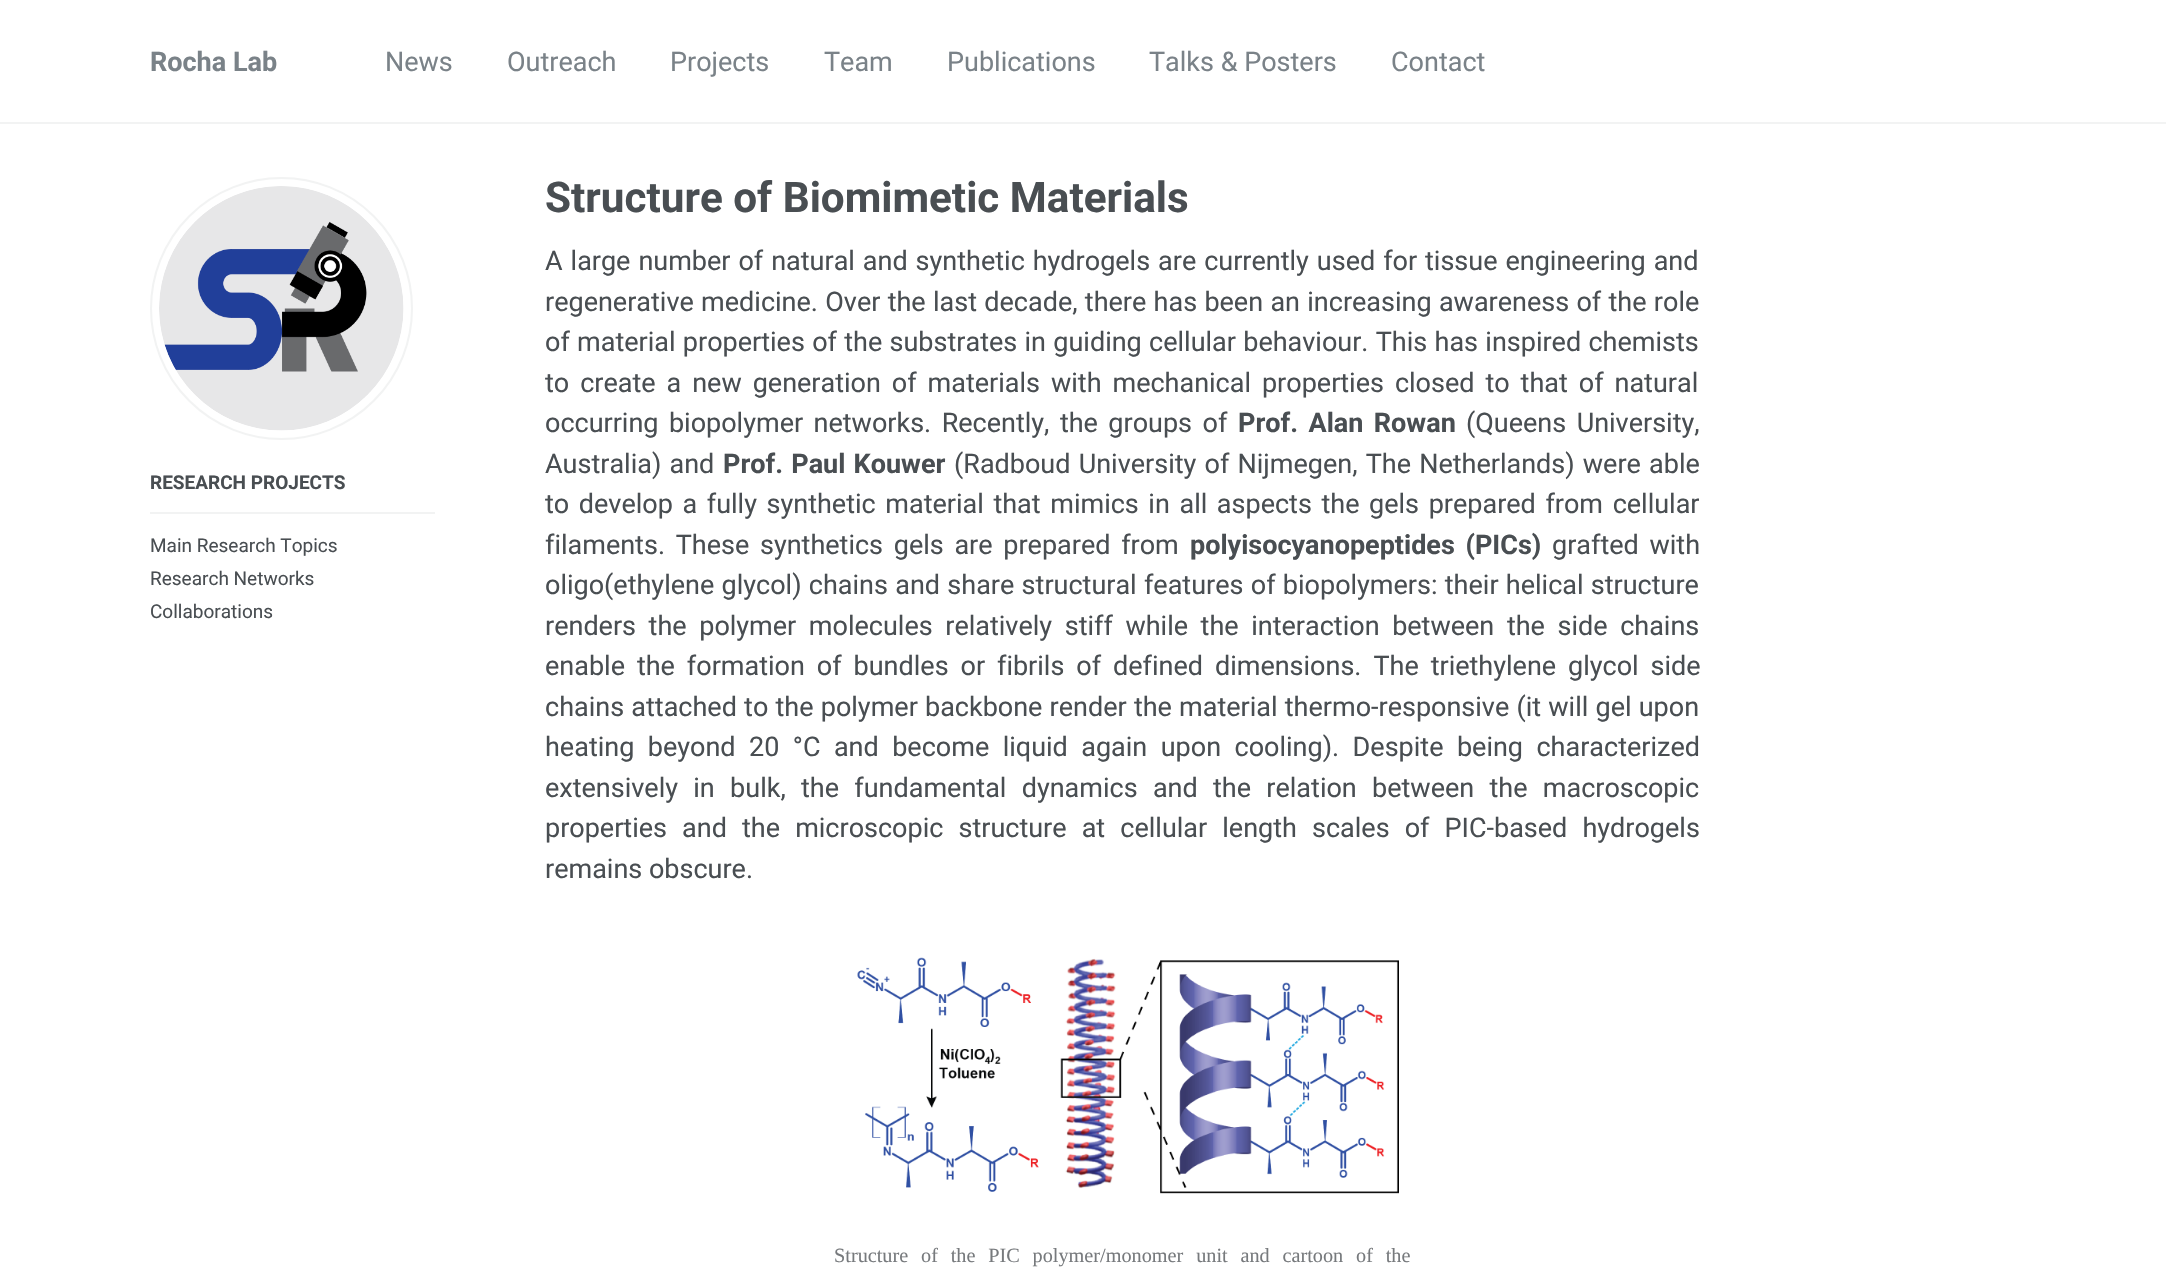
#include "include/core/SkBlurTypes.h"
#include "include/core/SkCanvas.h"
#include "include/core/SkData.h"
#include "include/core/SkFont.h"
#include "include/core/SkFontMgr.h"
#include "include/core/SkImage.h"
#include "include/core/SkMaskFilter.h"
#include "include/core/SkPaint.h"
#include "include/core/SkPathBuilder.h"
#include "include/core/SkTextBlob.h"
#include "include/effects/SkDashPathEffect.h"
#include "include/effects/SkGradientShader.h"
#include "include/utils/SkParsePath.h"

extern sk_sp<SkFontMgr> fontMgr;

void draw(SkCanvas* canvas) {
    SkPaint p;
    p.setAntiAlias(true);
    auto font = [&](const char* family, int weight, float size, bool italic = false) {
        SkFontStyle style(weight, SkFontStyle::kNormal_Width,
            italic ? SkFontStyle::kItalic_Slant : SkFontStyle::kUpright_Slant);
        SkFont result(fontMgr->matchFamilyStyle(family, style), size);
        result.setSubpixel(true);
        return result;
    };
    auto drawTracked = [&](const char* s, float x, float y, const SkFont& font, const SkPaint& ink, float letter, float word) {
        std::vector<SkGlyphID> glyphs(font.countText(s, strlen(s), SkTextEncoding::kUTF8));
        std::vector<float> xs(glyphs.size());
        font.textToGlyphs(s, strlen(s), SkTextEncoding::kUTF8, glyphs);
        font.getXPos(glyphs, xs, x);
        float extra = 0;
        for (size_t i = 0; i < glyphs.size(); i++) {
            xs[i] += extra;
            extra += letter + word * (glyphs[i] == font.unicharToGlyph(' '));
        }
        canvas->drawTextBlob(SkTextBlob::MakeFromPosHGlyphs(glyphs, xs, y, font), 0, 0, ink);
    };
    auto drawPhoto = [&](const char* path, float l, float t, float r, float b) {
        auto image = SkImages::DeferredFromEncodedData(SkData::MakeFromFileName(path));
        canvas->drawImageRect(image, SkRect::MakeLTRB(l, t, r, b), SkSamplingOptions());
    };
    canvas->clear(0xFFFFFFFF);
    p.setColor(0xFFF2F3F3);
    canvas->drawRect(SkRect::MakeLTRB(0, 122, 2166, 124), p);
    auto font1 = font("Roboto", 700, 27);
    p.setColor(0xFF7A8288);
    canvas->drawString("Rocha Lab", 150, 71, font1, p);
    auto font2 = font("Roboto", 400, 27);
    {
        const struct { const char* s; float x, y; } items[] = {
            {"News", 385, 71},
            {"Outreach", 507, 71},
            {"Projects", 670, 71},
            {"Team", 824, 71},
            {"Publications", 947, 71},
            {"Talks & Posters", 1149, 71},
            {"Contact", 1391, 71},
        };
        for (auto [s, x, y] : items) {
            canvas->drawString(s, x, y, font2, p);
        }
    }
    p.setStyle(SkPaint::kStroke_Style);
    p.setStrokeWidth(2);
    p.setColor(0xFFF2F3F3);
    canvas->drawCircle(281.5f, 308.5f, 130.5f, p);
    drawPhoto("media/1.png", 159, 186, 404, 431);
    p.setStyle(SkPaint::kFill_Style);
    canvas->drawRect(SkRect::MakeLTRB(150, 512, 435, 514), p);
    auto font3 = font("Roboto", 700, 19);
    p.setColor(0xFF494E52);
    canvas->drawString("RESEARCH PROJECTS", 150, 489, font3, p);
    auto font4 = font("Roboto", 400, 19);
    {
        const struct { const char* s; float x, y; } items[] = {
            {"Main Research Topics", 150, 552},
            {"Research Networks", 150, 585},
            {"Collaborations", 150, 618},
        };
        for (auto [s, x, y] : items) {
            canvas->drawString(s, x, y, font4, p);
        }
    }
    auto font5 = font("Roboto", 700, 42.25f);
    canvas->drawString("Structure of Biomimetic Materials", 545, 212, font5, p);
    drawTracked("A large number of natural and synthetic hydrogels are currently used for tissue engineering and", 545, 270, font2, p, 0, 1.25f);
    drawTracked("regenerative medicine. Over the last decade, there has been an increasing awareness of the role", 545, 311, font2, p, 0, 0.6f);
    drawTracked("of material properties of the substrates in guiding cellular behaviour. This has inspired chemists", 545, 351, font2, p, 0, 0.6f);
    drawTracked("to create a new generation of materials with mechanical properties closed to that of natural", 545, 392, font2, p, 0, 4.25f);
    drawTracked("occurring biopolymer networks. Recently, the groups of", 545, 432, font2, p, 0, 3.75f);
    drawTracked("Prof. Alan Rowan", 1238, 432, font1, p, 0, 3.75f);
    drawTracked("(Queens University,", 1466, 432, font2, p, 0, 3.75f);
    drawTracked("Australia) and", 545, 473, font2, p, 0, 1.5f);
    drawTracked("Prof. Paul Kouwer", 723, 473, font1, p, 0, 1.5f);
    drawTracked("(Radboud University of Nijmegen, The Netherlands) were able", 954, 473, font2, p, 0, 1.5f);
    drawTracked("to develop a fully synthetic material that mimics in all aspects the gels prepared from cellular", 545, 513, font2, p, 0, 2.9f);
    drawTracked("filaments. These synthetics gels are prepared from", 545, 554, font2, p, 0, 4);
    drawTracked("polyisocyanopeptides (PICs)", 1190, 554, font1, p, 0, 4);
    drawTracked("grafted with", 1552, 554, font2, p, 0, 4);
    drawTracked("oligo(ethylene glycol) chains and share structural features of biopolymers: their helical structure", 545, 594, font2, p, 0, 0.6f);
    drawTracked("renders the polymer molecules relatively stiff while the interaction between the side chains", 545, 635, font2, p, 0, 5.9f);
    drawTracked("enable the formation of bundles or fibrils of defined dimensions. The triethylene glycol side", 545, 675, font2, p, 0, 5.25f);
    drawTracked("chains attached to the polymer backbone render the material thermo-responsive (it will gel upon", 545, 716, font2, p, 0, 0.5f);
    drawTracked("heating beyond 20 °C and become liquid again upon cooling). Despite being characterized", 545, 756, font2, p, 0, 6.75f);
    drawTracked("extensively in bulk, the fundamental dynamics and the relation between the macroscopic", 545, 797, font2, p, 0, 8.6f);
    drawTracked("properties and the microscopic structure at cellular length scales of PIC-based hydrogels", 545, 837, font2, p, 0, 8.4f);
    canvas->drawString("remains obscure.", 545, 878, font2, p);
    drawPhoto("media/2.png", 857, 957, 1399, 1194);
    auto font6 = font("Liberation Serif", 400, 20.25f);
    p.setColor(0xFF777A7D);
    drawTracked("Structure of the PIC polymer/monomer unit and cartoon of the", 834, 1262, font6, p, 0, 7.75f);
}
